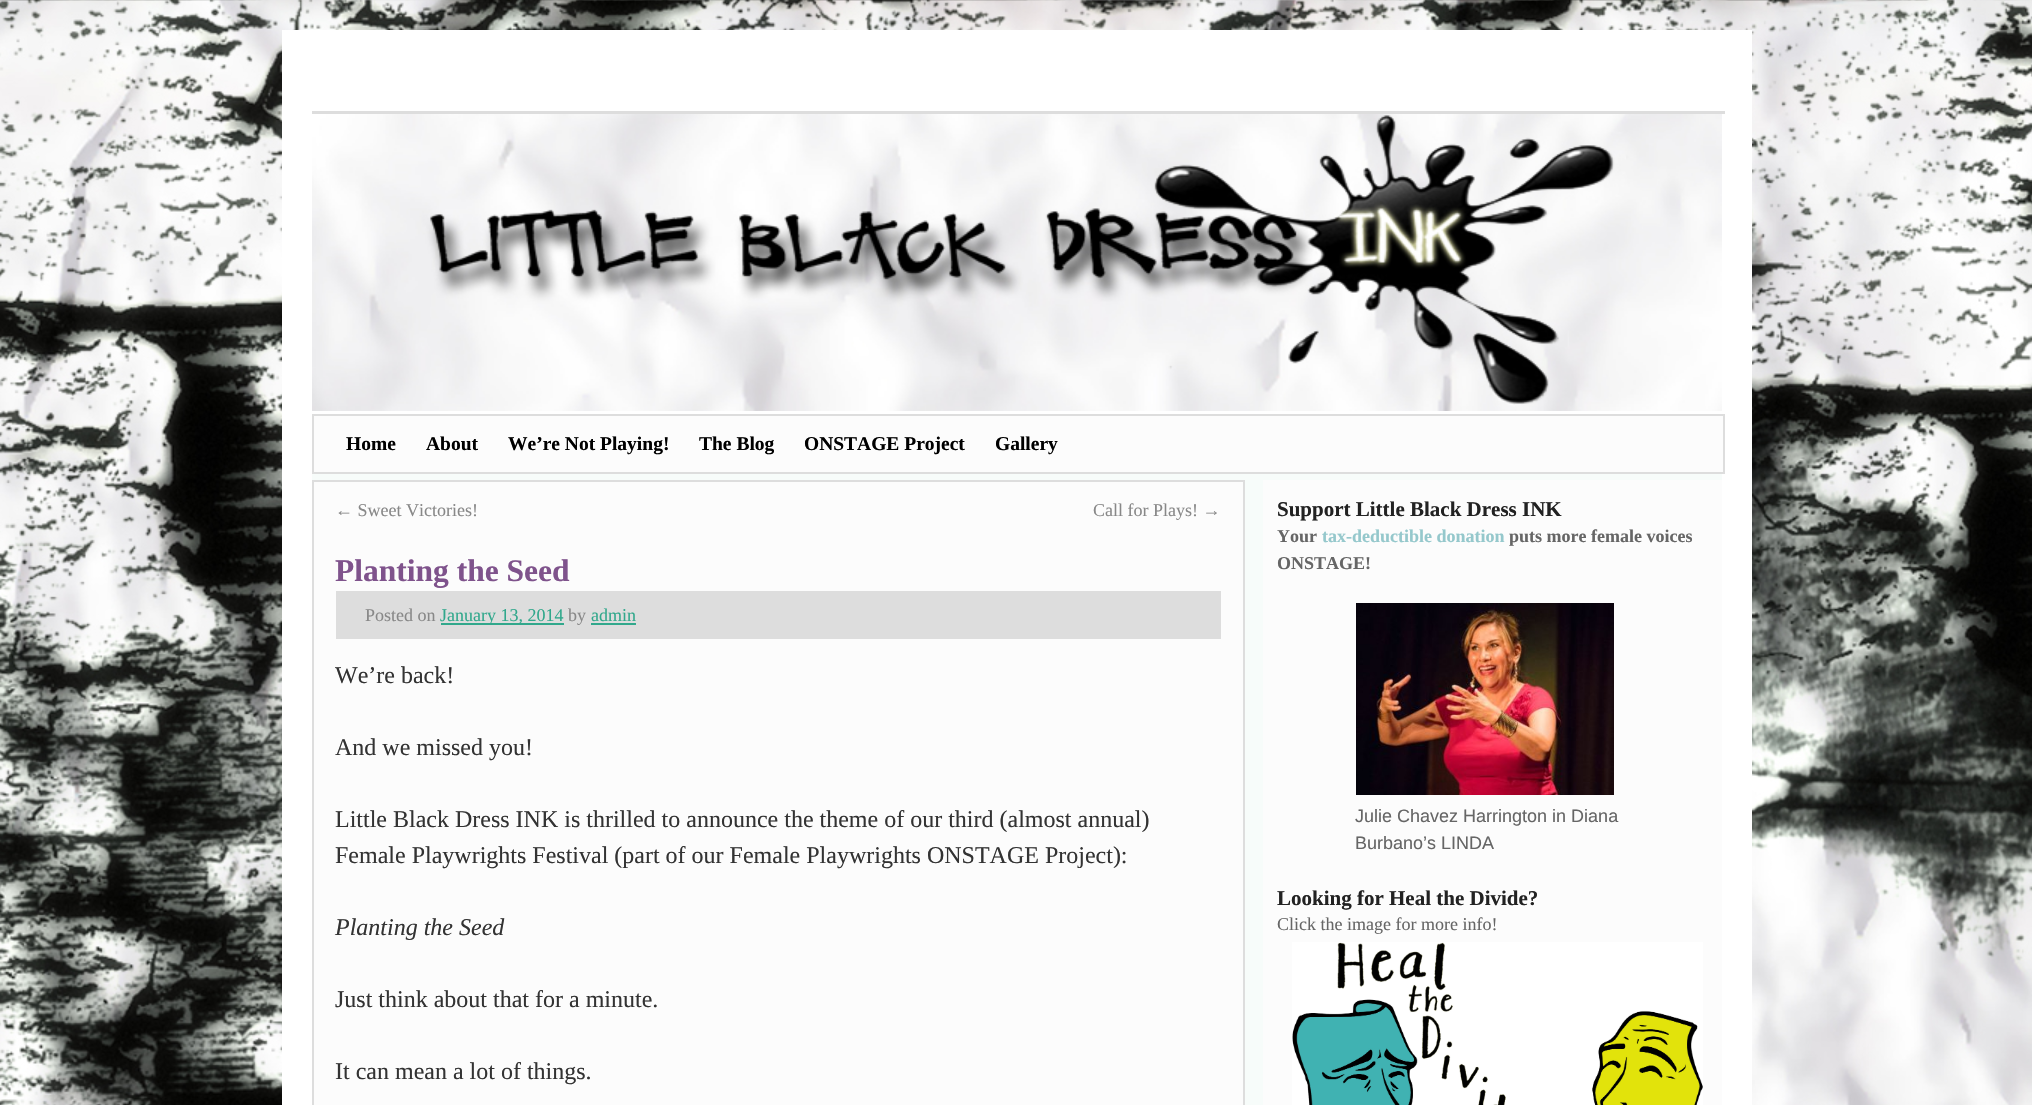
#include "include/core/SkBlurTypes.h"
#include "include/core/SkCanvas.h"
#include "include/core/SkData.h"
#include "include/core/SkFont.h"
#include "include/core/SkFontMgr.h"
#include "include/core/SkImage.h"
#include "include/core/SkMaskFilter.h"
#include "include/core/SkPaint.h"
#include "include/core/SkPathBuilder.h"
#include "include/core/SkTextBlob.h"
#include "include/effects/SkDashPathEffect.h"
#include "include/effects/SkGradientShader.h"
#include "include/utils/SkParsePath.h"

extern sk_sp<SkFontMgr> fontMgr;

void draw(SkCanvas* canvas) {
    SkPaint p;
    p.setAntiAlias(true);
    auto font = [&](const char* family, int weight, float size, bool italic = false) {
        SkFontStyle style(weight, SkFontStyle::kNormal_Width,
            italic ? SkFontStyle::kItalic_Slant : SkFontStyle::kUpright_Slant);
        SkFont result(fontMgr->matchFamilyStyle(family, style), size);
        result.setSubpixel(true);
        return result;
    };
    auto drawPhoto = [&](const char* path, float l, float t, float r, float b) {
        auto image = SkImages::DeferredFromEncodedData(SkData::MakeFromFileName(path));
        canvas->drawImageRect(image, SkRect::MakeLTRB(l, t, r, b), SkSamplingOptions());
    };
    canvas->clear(0xFFFFFFFF);
    drawPhoto("media/1.png", 0, 0, 2032, 1105);
    p.setColor(0xFFFFFFFF);
    canvas->drawRect(SkRect::MakeLTRB(282, 30, 1752, 1105), p);
    p.setColor(0xFFDDDDDD);
    canvas->drawRect(SkRect::MakeLTRB(312, 111, 1725, 114), p);
    drawPhoto("media/2.png", 312, 114, 1722, 411);
    p.setColor(0xFFFCFCFC);
    canvas->drawRect(SkRect::MakeLTRB(313, 415, 1724, 473), p);
    p.setStyle(SkPaint::kStroke_Style);
    p.setStrokeWidth(2);
    p.setColor(0xFFDDDDDD);
    canvas->drawRect(SkRect::MakeLTRB(313, 415, 1724, 473), p);
    auto font1 = font("Liberation Serif", 700, 19.5f);
    p.setStyle(SkPaint::kFill_Style);
    p.setColor(0xFF000000);
    {
        const struct { const char* s; float x, y; } items[] = {
            {"Home", 346, 450},
            {"About", 426, 450},
            {"We’re Not Playing!", 508, 450},
            {"The Blog", 699, 450},
            {"ONSTAGE Project", 804, 450},
            {"Gallery", 995, 450},
        };
        for (auto [s, x, y] : items) {
            canvas->drawString(s, x, y, font1, p);
        }
    }
    p.setColor(0xFFF7FCFA);
    canvas->drawRect(SkRect::MakeLTRB(312, 474, 1722, 1105), p);
    p.setColor(0xFFFCFCFC);
    canvas->drawRect(SkRect::MakeLTRB(313, 481, 1244, 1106), p);
    p.setStyle(SkPaint::kStroke_Style);
    p.setColor(0xFFDDDDDD);
    canvas->drawRect(SkRect::MakeLTRB(313, 481, 1244, 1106), p);
    auto font2 = font("Liberation Serif", 400, 18);
    p.setStyle(SkPaint::kFill_Style);
    p.setColor(0xFF888888);
    canvas->drawString("← Sweet Victories!", 335, 516, font2, p);
    canvas->drawString("Call for Plays! →", 1093, 516, font2, p);
    auto font3 = font("Liberation Serif", 700, 31.5f);
    p.setColor(0xFF7F538C);
    canvas->drawString("Planting the Seed", 335, 581, font3, p);
    p.setColor(0xFFDDDDDD);
    canvas->drawRect(SkRect::MakeLTRB(336, 591, 1221, 639), p);
    p.setColor(0xFF888888);
    canvas->drawString("Posted on", 365, 621, font2, p);
    p.setColor(0xFF31A88C);
    canvas->drawRect(SkRect::MakeLTRB(441, 623, 564, 625), p);
    canvas->drawString("January 13, 2014", 440, 621, font2, p);
    p.setColor(0xFF888888);
    canvas->drawString("by", 568, 621, font2, p);
    p.setColor(0xFF31A88C);
    canvas->drawString("admin", 591, 621, font2, p);
    canvas->drawRect(SkRect::MakeLTRB(591, 623, 636, 625), p);
    auto font4 = font("Liberation Serif", 400, 24);
    p.setColor(0xFF333333);
    {
        const struct { const char* s; float x, y; } items[] = {
            {"We’re back!", 335, 683},
            {"And we missed you!", 335, 755},
            {"Little Black Dress INK is thrilled to announce the theme of our third (almost annual)", 335, 827},
            {"Female Playwrights Festival (part of our Female Playwrights ONSTAGE Project):", 335, 863},
        };
        for (auto [s, x, y] : items) {
            canvas->drawString(s, x, y, font4, p);
        }
    }
    auto font5 = font("Liberation Serif", 400, 24, true);
    canvas->drawString("Planting the Seed", 335, 935, font5, p);
    canvas->drawString("Just think about that for a minute.", 335, 1007, font4, p);
    canvas->drawString("It can mean a lot of things.", 335, 1079, font4, p);
    p.setColor(0xFFFCFCFC);
    canvas->drawRect(SkRect::MakeLTRB(1263, 480, 1722, 1105), p);
    auto font6 = font("Liberation Serif", 700, 21);
    p.setColor(0xFF222222);
    canvas->drawString("Support Little Black Dress INK", 1277, 516, font6, p);
    auto font7 = font("Liberation Serif", 700, 18);
    p.setColor(0xFF666666);
    canvas->drawString("Your", 1277, 542, font7, p);
    p.setColor(0xFF95C8CC);
    canvas->drawString("tax-deductible donation", 1322, 542, font7, p);
    p.setColor(0xFF666666);
    canvas->drawString("puts more female voices", 1509, 542, font7, p);
    canvas->drawString("ONSTAGE!", 1277, 569, font7, p);
    drawPhoto("media/3.png", 1356, 603, 1614, 795);
    auto font8 = font("Liberation Sans", 400, 18);
    canvas->drawString("Julie Chavez Harrington in Diana", 1355, 822, font8, p);
    canvas->drawString("Burbano’s LINDA", 1355, 849, font8, p);
    p.setColor(0xFF222222);
    canvas->drawString("Looking for Heal the Divide?", 1277, 905, font6, p);
    p.setColor(0xFF666666);
    canvas->drawString("Click the image for more info!", 1277, 930, font2, p);
    drawPhoto("media/4.png", 1292, 942, 1703, 1105);
}
